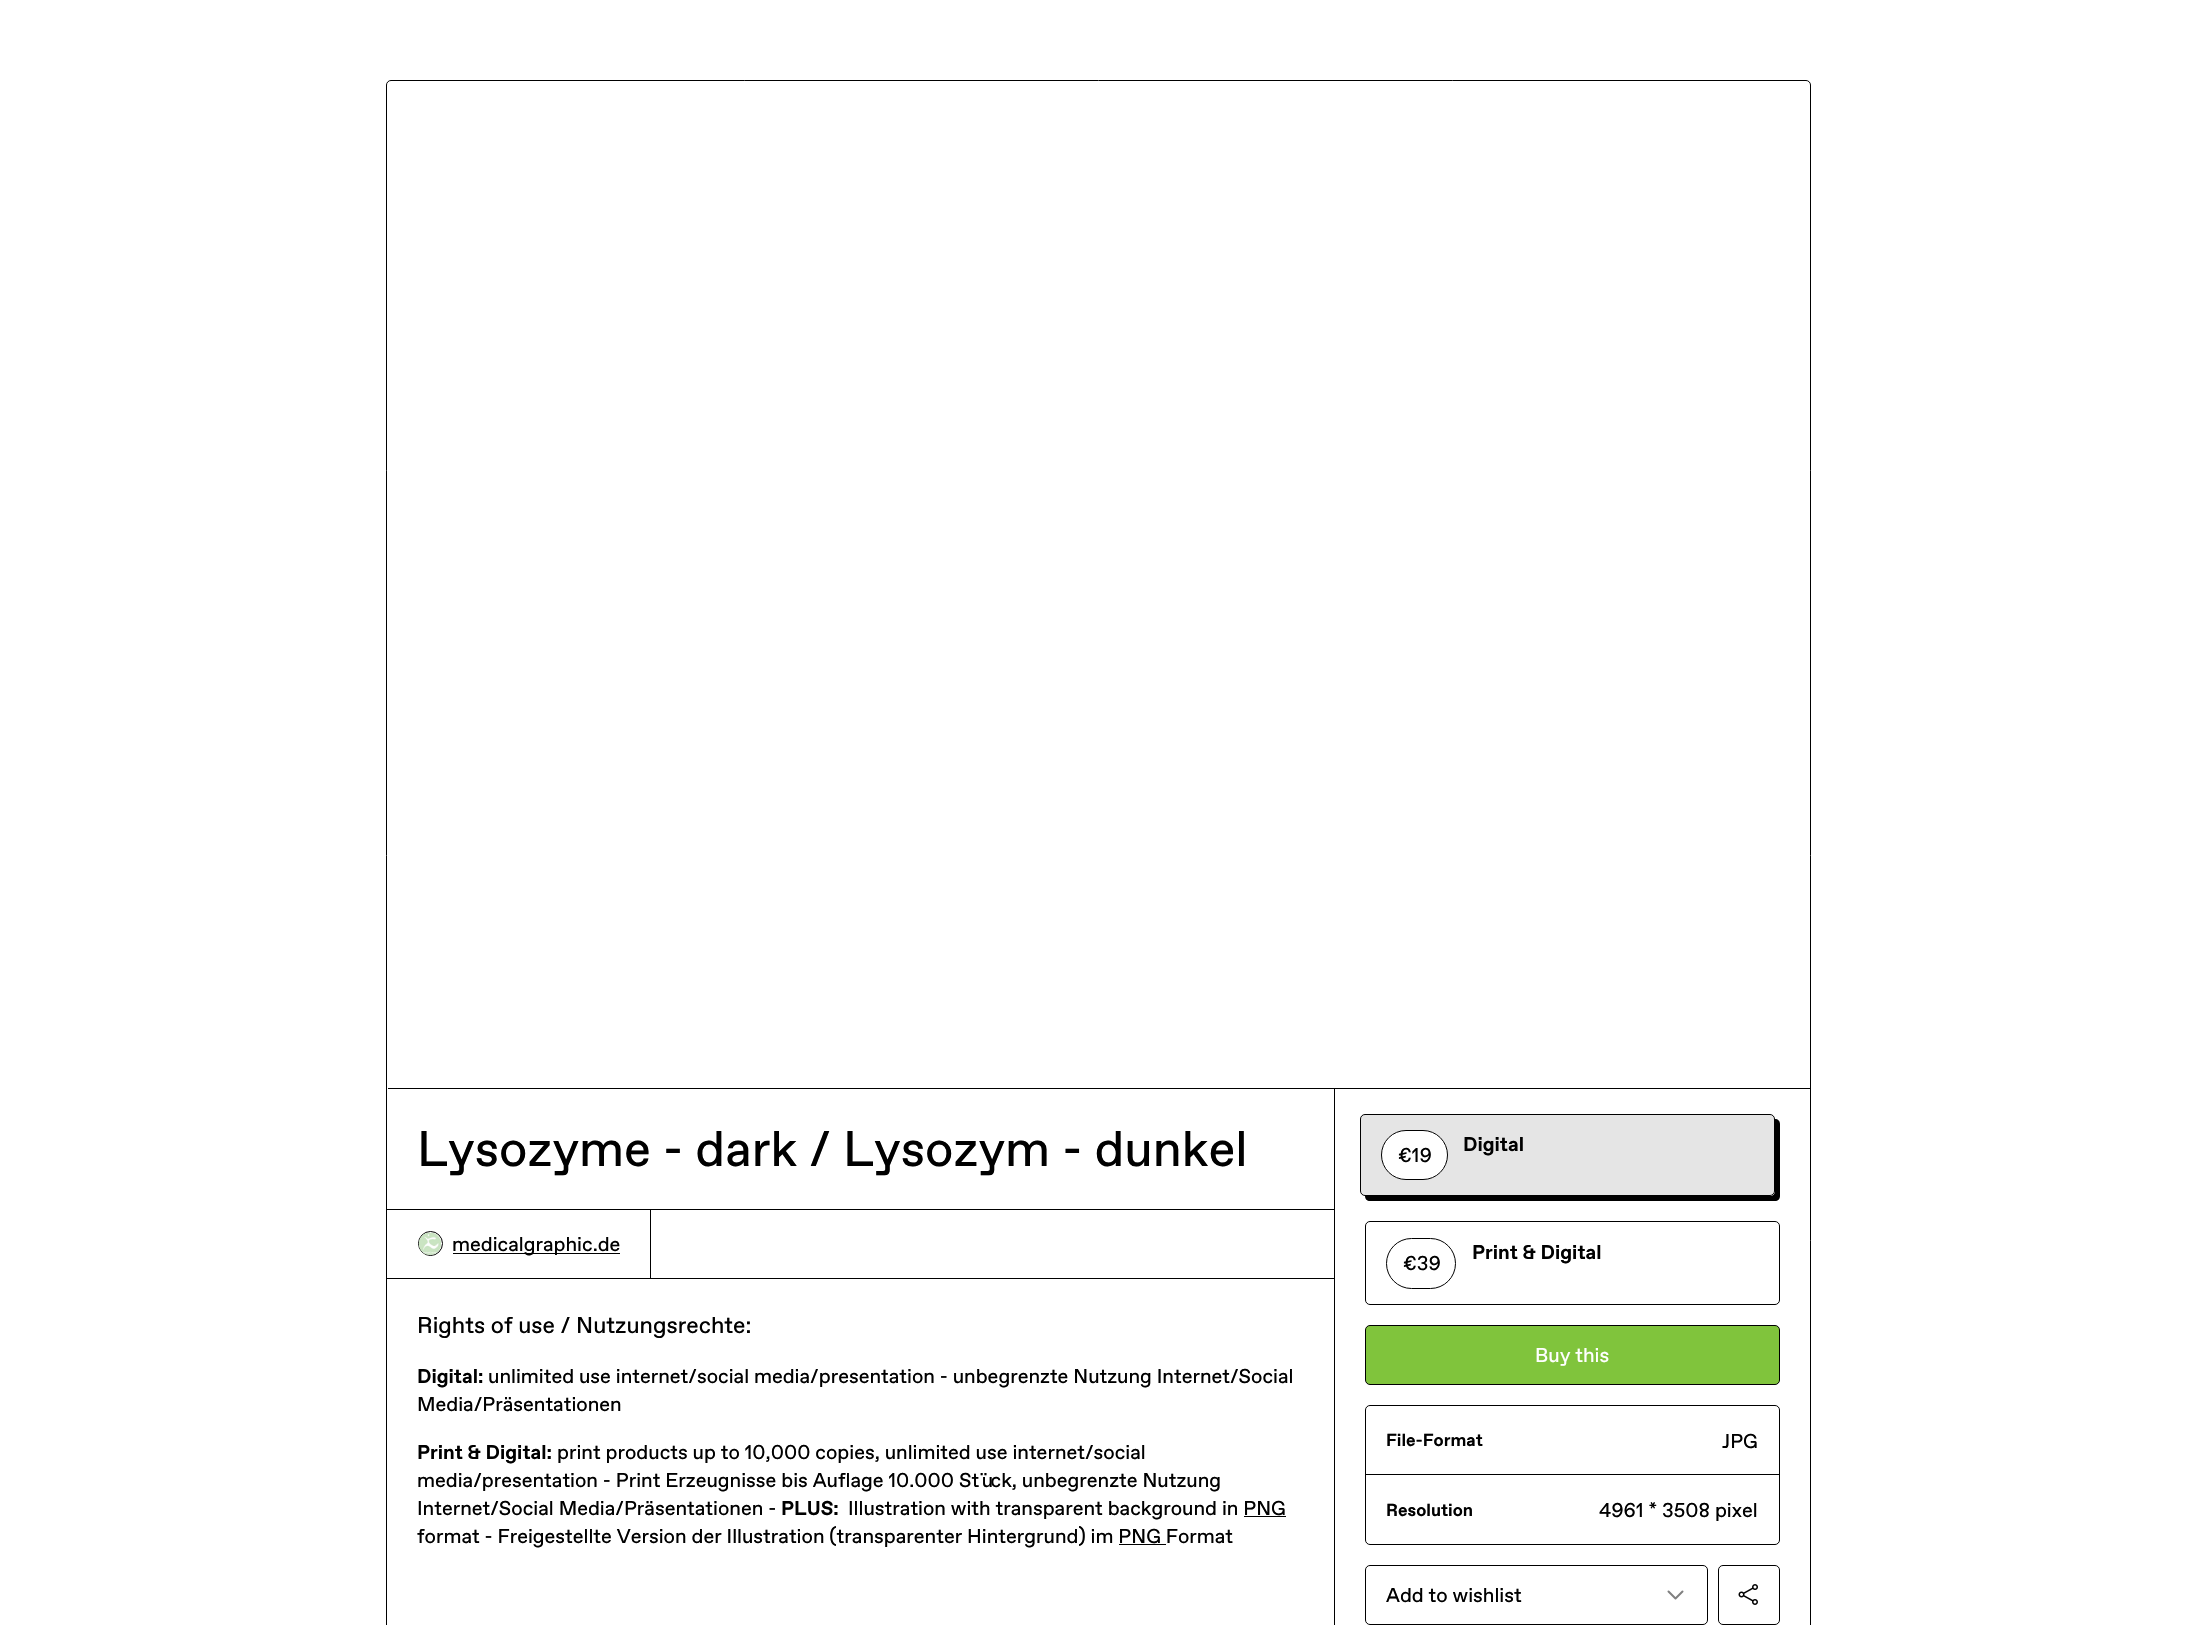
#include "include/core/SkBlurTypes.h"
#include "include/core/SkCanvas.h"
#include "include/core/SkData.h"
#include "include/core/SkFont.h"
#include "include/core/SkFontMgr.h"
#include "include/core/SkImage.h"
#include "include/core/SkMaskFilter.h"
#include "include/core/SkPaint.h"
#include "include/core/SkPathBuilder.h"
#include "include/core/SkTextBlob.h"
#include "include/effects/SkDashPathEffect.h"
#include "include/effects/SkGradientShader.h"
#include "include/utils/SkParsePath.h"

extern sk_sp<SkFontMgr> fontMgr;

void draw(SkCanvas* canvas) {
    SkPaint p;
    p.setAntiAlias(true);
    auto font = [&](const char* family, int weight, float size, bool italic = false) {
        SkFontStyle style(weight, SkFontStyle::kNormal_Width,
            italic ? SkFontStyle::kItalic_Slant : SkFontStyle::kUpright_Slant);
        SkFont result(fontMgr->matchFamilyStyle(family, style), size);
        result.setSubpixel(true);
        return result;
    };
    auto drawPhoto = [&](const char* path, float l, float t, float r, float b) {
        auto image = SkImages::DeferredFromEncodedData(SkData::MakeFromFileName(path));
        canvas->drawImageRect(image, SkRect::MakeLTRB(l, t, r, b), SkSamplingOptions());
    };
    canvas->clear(0xFFFFFFFF);
    p.setStyle(SkPaint::kStroke_Style);
    p.setStrokeWidth(1);
    p.setColor(0xFF000000);
    canvas->drawRoundRect(SkRect::MakeLTRB(386.5f, 80.5f, 1810.5f, 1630.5f), 4.5f, 4.5f, p);
    p.setStyle(SkPaint::kFill_Style);
    canvas->drawRect(SkRect::MakeLTRB(388, 1088, 1810, 1089), p);
    canvas->drawRect(SkRect::MakeLTRB(1334, 1089, 1335, 1625), p);
    auto font1 = font("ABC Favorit", 400, 50);
    canvas->drawString("Lysozyme - dark / Lysozym - dunkel", 417, 1166, font1, p);
    canvas->drawRect(SkRect::MakeLTRB(651, 1209, 1334, 1210), p);
    p.setStyle(SkPaint::kStroke_Style);
    canvas->drawRect(SkRect::MakeLTRB(386.5f, 1209.5f, 650.5f, 1278.5f), p);
    canvas->drawCircle(430.5f, 1243.5f, 12, p);
    drawPhoto("media/1.png", 418, 1232, 441, 1255);
    p.setStyle(SkPaint::kFill_Style);
    canvas->drawRect(SkRect::MakeLTRB(453, 1253, 620, 1254), p);
    auto font2 = font("ABC Favorit", 400, 20);
    canvas->drawString("medicalgraphic.de", 452, 1251, font2, p);
    canvas->drawRect(SkRect::MakeLTRB(651, 1278, 1334, 1279), p);
    auto font3 = font("ABC Favorit", 400, 23);
    canvas->drawString("Rights of use / Nutzungsrechte:", 417, 1333, font3, p);
    auto font4 = font("ABC Favorit", 700, 20);
    canvas->drawString("Digital:", 417, 1383, font4, p);
    canvas->drawString("unlimited use internet/social media/presentation - unbegrenzte Nutzung Internet/Social", 488, 1383, font2, p);
    canvas->drawString("Media/Präsentationen", 417, 1411, font2, p);
    canvas->drawString("Print & Digital:", 417, 1459, font4, p);
    {
        const struct { const char* s; float x, y; } items[] = {
            {"print products up to 10,000 copies, unlimited use internet/social", 557, 1459},
            {"media/presentation - Print Erzeugnisse bis Auflage 10.000 Stück, unbegrenzte Nutzung", 417, 1487},
            {"Internet/Social Media/Präsentationen -", 417, 1515},
        };
        for (auto [s, x, y] : items) {
            canvas->drawString(s, x, y, font2, p);
        }
    }
    canvas->drawString("PLUS:", 781, 1515, font4, p);
    canvas->drawString("Illustration with transparent background in PNG", 848, 1515, font2, p);
    canvas->drawRect(SkRect::MakeLTRB(1244, 1516, 1286, 1517), p);
    canvas->drawString("format - Freigestellte Version der Illustration (transparenter Hintergrund) im PNG Format", 417, 1543, font2, p);
    canvas->drawRect(SkRect::MakeLTRB(1119, 1544, 1166, 1545), p);
    canvas->drawPath(SkPathBuilder().moveTo(1365, 1196).cubicTo(1365, 1199, 1367, 1201, 1370, 1201).lineTo(1775, 1201).cubicTo(1778, 1201, 1780, 1199, 1780, 1196).lineTo(1780, 1124).cubicTo(1780, 1121, 1778, 1119, 1775, 1119).lineTo(1775, 1191).cubicTo(1775, 1194, 1773, 1196, 1770, 1196).close().detach(), p);
    p.setColor(0x1A000000);
    canvas->drawRoundRect(SkRect::MakeLTRB(1360.5f, 1114.5f, 1774.5f, 1195.5f), 4.5f, 4.5f, p);
    p.setStyle(SkPaint::kStroke_Style);
    p.setColor(0xFF000000);
    canvas->drawRoundRect(SkRect::MakeLTRB(1360.5f, 1114.5f, 1774.5f, 1195.5f), 4.5f, 4.5f, p);
    p.setStyle(SkPaint::kFill_Style);
    p.setColor(0xFFFFFFFF);
    canvas->drawRoundRect(SkRect::MakeLTRB(1381.5f, 1130.5f, 1447.5f, 1179.5f), 24.5f, 24.5f, p);
    p.setStyle(SkPaint::kStroke_Style);
    p.setColor(0xFF000000);
    canvas->drawRoundRect(SkRect::MakeLTRB(1381.5f, 1130.5f, 1447.5f, 1179.5f), 24.5f, 24.5f, p);
    p.setStyle(SkPaint::kFill_Style);
    canvas->drawString("€19", 1398, 1162, font2, p);
    canvas->drawString("Digital", 1463, 1151, font4, p);
    p.setStyle(SkPaint::kStroke_Style);
    canvas->drawRoundRect(SkRect::MakeLTRB(1365.5f, 1221.5f, 1779.5f, 1304.5f), 4.5f, 4.5f, p);
    canvas->drawRoundRect(SkRect::MakeLTRB(1386.5f, 1238.5f, 1455.5f, 1288.5f), 25, 25, p);
    p.setStyle(SkPaint::kFill_Style);
    canvas->drawString("€39", 1403, 1270, font2, p);
    canvas->drawString("Print & Digital", 1472, 1259, font4, p);
    p.setColor(0xFF80C43C);
    canvas->drawRoundRect(SkRect::MakeLTRB(1365.5f, 1325.5f, 1779.5f, 1384.5f), 4.5f, 4.5f, p);
    p.setStyle(SkPaint::kStroke_Style);
    p.setColor(0xFF000000);
    canvas->drawRoundRect(SkRect::MakeLTRB(1365.5f, 1325.5f, 1779.5f, 1384.5f), 4.5f, 4.5f, p);
    p.setStyle(SkPaint::kFill_Style);
    p.setColor(0xFFFFFFFF);
    canvas->drawString("Buy this", 1535, 1362, font2, p);
    p.setStyle(SkPaint::kStroke_Style);
    p.setColor(0xFF000000);
    canvas->drawRoundRect(SkRect::MakeLTRB(1365.5f, 1405.5f, 1779.5f, 1544.5f), 4.5f, 4.5f, p);
    auto font5 = font("ABC Favorit", 700, 17.5f);
    p.setStyle(SkPaint::kFill_Style);
    canvas->drawString("File-Format", 1386, 1446, font5, p);
    canvas->drawString("JPG", 1722, 1448, font2, p);
    canvas->drawRect(SkRect::MakeLTRB(1366, 1474, 1779, 1475), p);
    canvas->drawString("Resolution", 1386, 1516, font5, p);
    canvas->drawString("4961 * 3508 pixel", 1599, 1517, font2, p);
    p.setStyle(SkPaint::kStroke_Style);
    canvas->drawRoundRect(SkRect::MakeLTRB(1365.5f, 1565.5f, 1707.5f, 1624.5f), 4.5f, 4.5f, p);
    p.setStyle(SkPaint::kFill_Style);
    canvas->drawString("Add to wishlist", 1386, 1602, font2, p);
    p.setStyle(SkPaint::kStroke_Style);
    p.setStrokeWidth(2);
    p.setStrokeCap(SkPaint::kRound_Cap);
    p.setStrokeJoin(SkPaint::kRound_Join);
    p.setColor(0xFF808080);
    canvas->drawPath(SkPathBuilder().moveTo(1682.5f, 1591.5f).lineTo(1675.5f, 1598.5f).lineTo(1668.5f, 1591.5f).detach(), p);
    p.setStrokeWidth(1);
    p.setStrokeCap(SkPaint::kButt_Cap);
    p.setStrokeJoin(SkPaint::kMiter_Join);
    p.setColor(0xFF000000);
    canvas->drawRoundRect(SkRect::MakeLTRB(1718.5f, 1565.5f, 1779.5f, 1624.5f), 4.5f, 4.5f, p);
    drawPhoto("media/2.png", 1738, 1584, 1758, 1605);
}
